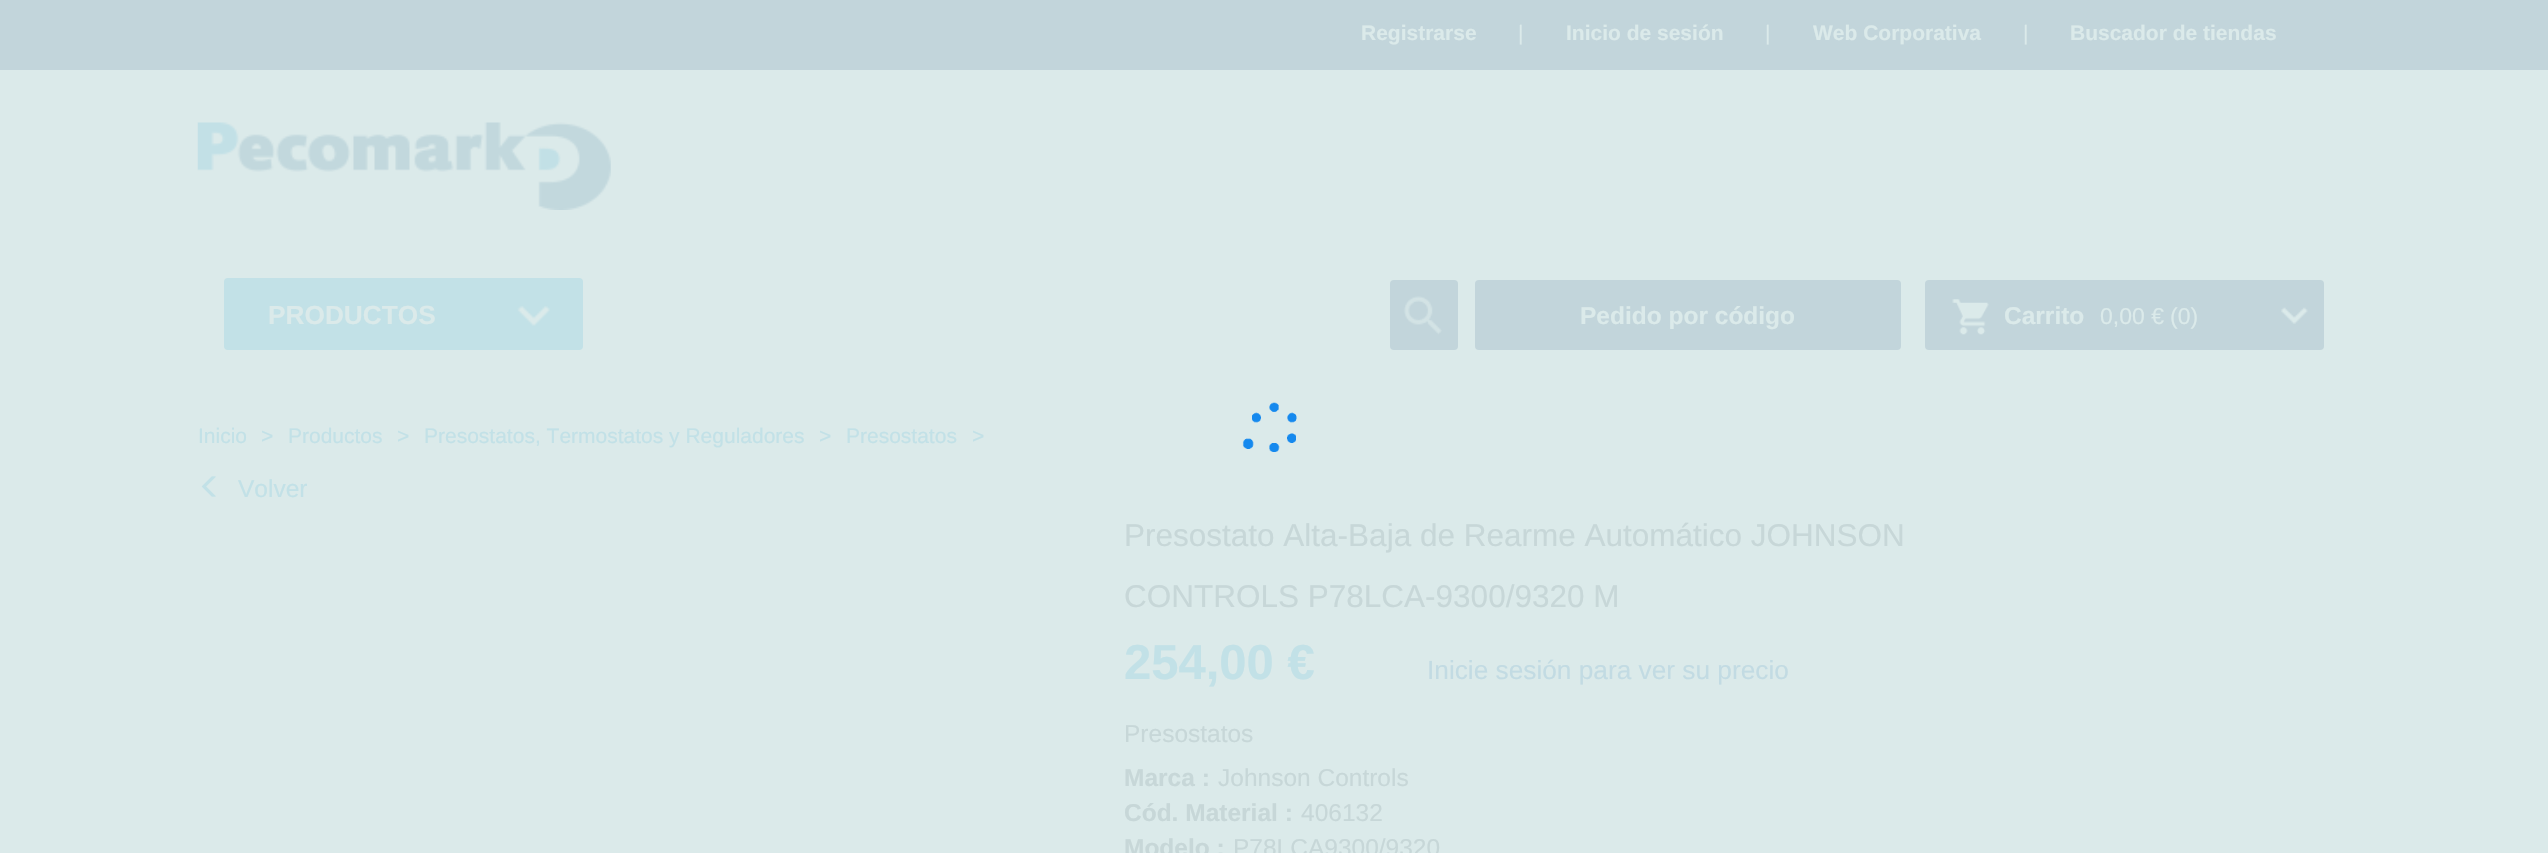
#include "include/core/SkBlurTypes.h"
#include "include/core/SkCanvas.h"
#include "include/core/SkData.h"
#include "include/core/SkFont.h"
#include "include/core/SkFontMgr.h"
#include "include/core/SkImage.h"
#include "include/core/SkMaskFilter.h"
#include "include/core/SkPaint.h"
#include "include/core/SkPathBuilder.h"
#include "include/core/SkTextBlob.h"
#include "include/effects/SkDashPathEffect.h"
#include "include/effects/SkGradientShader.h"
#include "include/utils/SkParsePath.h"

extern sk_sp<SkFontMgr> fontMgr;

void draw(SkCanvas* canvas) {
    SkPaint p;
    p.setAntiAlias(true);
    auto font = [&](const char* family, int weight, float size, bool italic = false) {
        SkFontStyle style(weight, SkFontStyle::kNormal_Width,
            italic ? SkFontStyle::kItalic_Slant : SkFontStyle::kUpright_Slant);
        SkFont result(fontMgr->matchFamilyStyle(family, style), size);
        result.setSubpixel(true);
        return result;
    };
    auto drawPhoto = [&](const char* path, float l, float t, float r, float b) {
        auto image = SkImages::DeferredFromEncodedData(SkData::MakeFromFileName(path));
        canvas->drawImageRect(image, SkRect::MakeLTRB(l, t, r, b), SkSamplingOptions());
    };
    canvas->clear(0xFFDBEAEA);
    p.setColor(0xFFC2D5DB);
    canvas->drawRect(SkRect::MakeLTRB(0, 0, 2548, 70), p);
    auto font1 = font("Liberation Sans", 700, 21);
    p.setColor(0xFFDBEAEA);
    canvas->drawString("Registrarse", 1361, 40, font1, p);
    auto font2 = font("Liberation Sans", 400, 21);
    canvas->drawString("|", 1518, 40, font2, p);
    canvas->drawString("Inicio de sesión", 1566, 40, font1, p);
    canvas->drawString("|", 1765, 40, font2, p);
    canvas->drawString("Web Corporativa", 1813, 40, font1, p);
    canvas->drawString("|", 2023, 40, font2, p);
    canvas->drawString("Buscador de tiendas", 2070, 40, font1, p);
    drawPhoto("media/1.png", 197, 122, 611, 210);
    p.setColor(0xFFC2E1E7);
    canvas->drawRoundRect(SkRect::MakeLTRB(224, 278, 583, 350), 4, 4, p);
    drawPhoto("media/2.png", 517, 305, 550, 326);
    auto font3 = font("Liberation Sans", 700, 26.25f);
    p.setColor(0xFFDBEAEA);
    canvas->drawString("PRODUCTOS", 268, 324, font3, p);
    p.setColor(0xFFC2D5DB);
    canvas->drawRoundRect(SkRect::MakeLTRB(1390, 280, 1458, 350), 4, 4, p);
    drawPhoto("media/3.png", 1403, 296, 1443, 335);
    canvas->drawRoundRect(SkRect::MakeLTRB(1475, 280, 1901, 350), 4, 4, p);
    auto font4 = font("Liberation Sans", 700, 24.5f);
    p.setColor(0xFFDBEAEA);
    canvas->drawString("Pedido por código", 1580, 324, font4, p);
    p.setColor(0xFFC2D5DB);
    canvas->drawRoundRect(SkRect::MakeLTRB(1925, 280, 2324, 350), 4, 4, p);
    drawPhoto("media/4.png", 2280, 307, 2308, 324);
    drawPhoto("media/5.png", 1952, 299, 1989, 335);
    p.setColor(0xFFDBEAEA);
    canvas->drawString("Carrito", 2004, 324, font4, p);
    auto font5 = font("Liberation Sans", 400, 23);
    canvas->drawString("0,00 €", 2100, 324, font5, p);
    canvas->drawString("(0)", 2170, 324, font5, p);
    p.setColor(0xFFC2E1E7);
    {
        const struct { const char* s; float x, y; } items[] = {
            {"Inicio", 198, 443},
            {">", 261, 443},
            {"Productos", 288, 443},
            {">", 397, 443},
            {"Presostatos, Termostatos y Reguladores", 424, 443},
            {">", 819, 443},
            {"Presostatos", 846, 443},
            {">", 972, 443},
        };
        for (auto [s, x, y] : items) {
            canvas->drawString(s, x, y, font2, p);
        }
    }
    drawPhoto("media/6.png", 201, 476, 216, 497);
    auto font6 = font("Liberation Sans", 400, 24.5f);
    canvas->drawString("Volver", 238, 497, font6, p);
    auto font7 = font("Liberation Sans", 400, 31.5f);
    p.setColor(0xFFC7D7D8);
    canvas->drawString("Presostato Alta-Baja de Rearme Automático JOHNSON", 1124, 546, font7, p);
    canvas->drawString("CONTROLS P78LCA-9300/9320 M", 1124, 607, font7, p);
    auto font8 = font("Liberation Sans", 700, 49);
    p.setColor(0xFFC2E1E7);
    canvas->drawString("254,00 €", 1124, 679, font8, p);
    auto font9 = font("Liberation Sans", 400, 26.25f);
    p.setColor(0xFFC2DBE3);
    canvas->drawString("Inicie sesión para ver su precio", 1427, 679, font9, p);
    p.setColor(0xFFC7D7D8);
    canvas->drawString("Presostatos", 1124, 742, font6, p);
    canvas->drawString("Marca :", 1124, 786, font4, p);
    canvas->drawString("Johnson Controls", 1218, 786, font6, p);
    canvas->drawString("Cód. Material :", 1124, 821, font4, p);
    canvas->drawString("406132", 1301, 821, font6, p);
    canvas->drawString("Modelo :", 1124, 856, font4, p);
    canvas->drawString("P78LCA9300/9320", 1233, 856, font6, p);
    drawPhoto("media/7.png", 1242, 402, 1297, 452);
}
